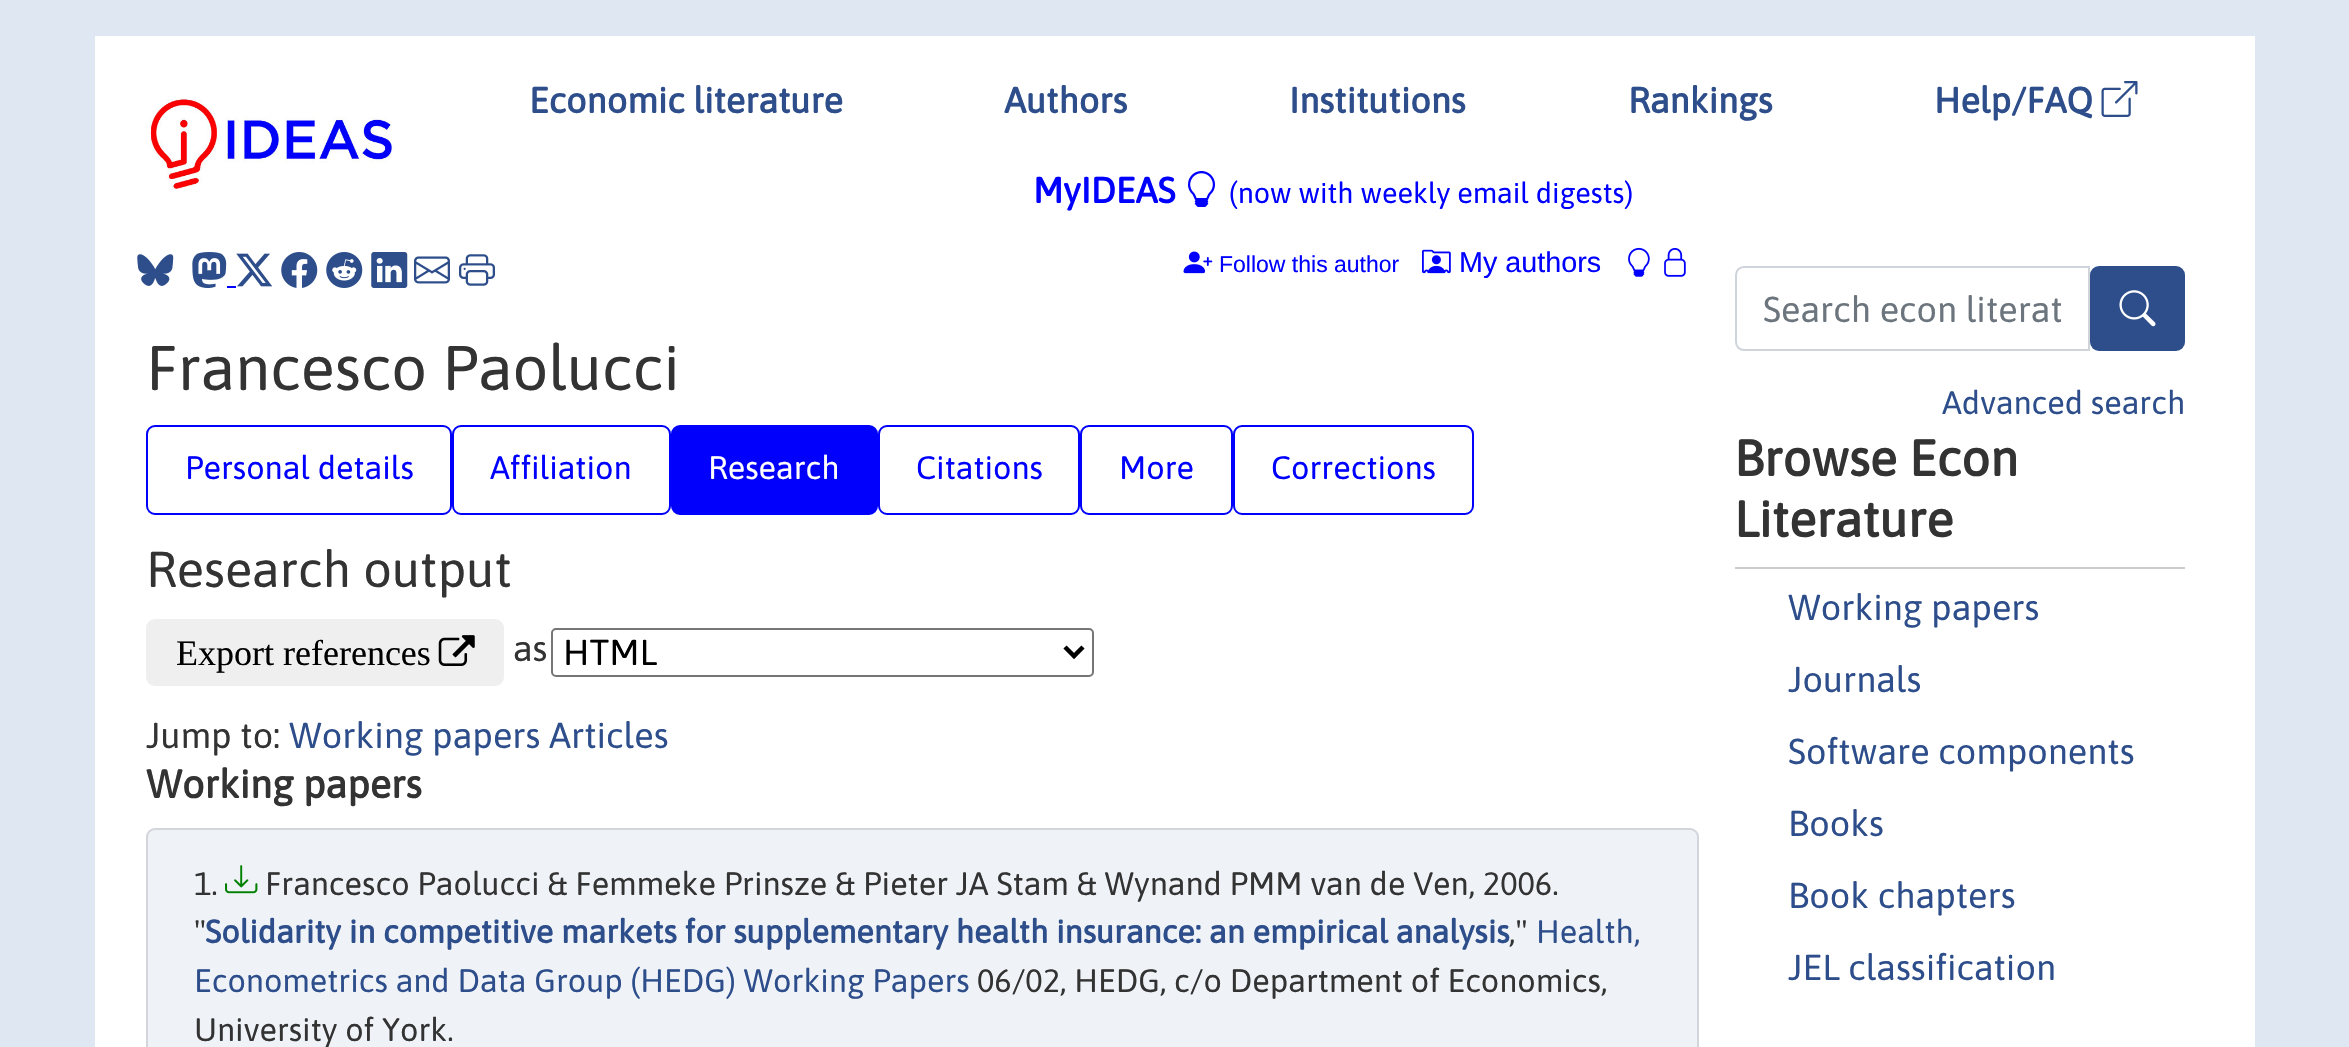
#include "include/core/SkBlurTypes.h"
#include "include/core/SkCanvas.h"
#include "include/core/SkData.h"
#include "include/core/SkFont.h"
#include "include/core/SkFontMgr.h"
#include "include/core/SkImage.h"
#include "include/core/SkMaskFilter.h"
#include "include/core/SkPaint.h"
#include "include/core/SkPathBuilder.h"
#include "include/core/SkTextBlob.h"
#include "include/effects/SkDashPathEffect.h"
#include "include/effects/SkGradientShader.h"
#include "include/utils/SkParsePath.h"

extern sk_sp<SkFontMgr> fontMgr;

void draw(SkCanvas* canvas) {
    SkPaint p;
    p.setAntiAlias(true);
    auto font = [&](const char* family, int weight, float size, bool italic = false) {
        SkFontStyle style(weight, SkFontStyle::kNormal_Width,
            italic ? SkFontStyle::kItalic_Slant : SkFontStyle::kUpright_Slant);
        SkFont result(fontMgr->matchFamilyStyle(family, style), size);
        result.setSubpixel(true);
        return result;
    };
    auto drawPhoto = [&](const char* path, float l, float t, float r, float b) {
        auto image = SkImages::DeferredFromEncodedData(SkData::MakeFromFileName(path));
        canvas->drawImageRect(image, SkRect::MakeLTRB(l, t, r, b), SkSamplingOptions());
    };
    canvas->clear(0xFFDFE7F2);
    p.setColor(0xFFFFFFFF);
    canvas->drawRect(SkRect::MakeLTRB(95, 36, 2255, 1047), p);
    drawPhoto("media/1.png", 148, 99, 395, 190);
    auto font1 = font("Asap", 700, 36);
    p.setColor(0xFF2D4E8B);
    {
        const struct { const char* s; float x, y; } items[] = {
            {"Economic literature", 529, 113},
            {"Authors", 1004, 113},
            {"Institutions", 1289, 113},
            {"Rankings", 1628, 113},
            {"Help/FAQ", 1934, 113},
        };
        for (auto [s, x, y] : items) {
            canvas->drawString(s, x, y, font1, p);
        }
    }
    drawPhoto("media/2.png", 2101, 81, 2138, 117);
    p.setColor(0xFF0000FF);
    canvas->drawString("MyIDEAS", 1033, 203, font1, p);
    drawPhoto("media/3.png", 1188, 171, 1215, 207);
    auto font2 = font("Asap", 400, 28.75f);
    canvas->drawString("(now with weekly email digests)", 1229, 203, font2, p);
    drawPhoto("media/4.png", 137, 254, 174, 286);
    drawPhoto("media/5.png", 192, 252, 227, 288);
    canvas->drawRect(SkRect::MakeLTRB(227, 286, 236, 288), p);
    drawPhoto("media/6.png", 236, 253, 273, 287);
    drawPhoto("media/7.png", 281, 252, 318, 288);
    drawPhoto("media/8.png", 326, 252, 363, 288);
    drawPhoto("media/9.png", 371, 252, 408, 288);
    drawPhoto("media/10.png", 414, 256, 450, 284);
    drawPhoto("media/11.png", 459, 254, 495, 286);
    drawPhoto("media/12.png", 1183, 251, 1213, 274);
    auto font3 = font("Liberation Sans", 400, 23);
    canvas->drawString("Follow this author", 1219, 272, font3, p);
    drawPhoto("media/13.png", 1422, 249, 1451, 274);
    auto font4 = font("Liberation Sans", 400, 28.75f);
    canvas->drawString("My authors", 1459, 272, font4, p);
    drawPhoto("media/14.png", 1628, 247, 1650, 277);
    drawPhoto("media/15.png", 1664, 248, 1686, 277);
    auto font5 = font("Asap", 400, 63);
    p.setColor(0xFF333333);
    canvas->drawString("Francesco Paolucci", 146, 390, font5, p);
    p.setStyle(SkPaint::kStroke_Style);
    p.setStrokeWidth(2);
    p.setColor(0xFF0000FC);
    canvas->drawRoundRect(SkRect::MakeLTRB(147, 426, 451, 514), 8, 8, p);
    auto font6 = font("Asap", 400, 32.4f);
    p.setStyle(SkPaint::kFill_Style);
    p.setColor(0xFF0000FF);
    canvas->drawString("Personal details", 185, 479, font6, p);
    p.setStyle(SkPaint::kStroke_Style);
    p.setColor(0xFF0000FC);
    canvas->drawRoundRect(SkRect::MakeLTRB(453, 426, 670, 514), 8, 8, p);
    p.setStyle(SkPaint::kFill_Style);
    p.setColor(0xFF0000FF);
    canvas->drawString("Affiliation", 490, 479, font6, p);
    p.setColor(0xFF0000FC);
    canvas->drawRoundRect(SkRect::MakeLTRB(672, 426, 877, 514), 8, 8, p);
    p.setStyle(SkPaint::kStroke_Style);
    canvas->drawRoundRect(SkRect::MakeLTRB(672, 426, 877, 514), 8, 8, p);
    p.setStyle(SkPaint::kFill_Style);
    p.setColor(0xFFFFFFFF);
    canvas->drawString("Research", 708, 479, font6, p);
    p.setStyle(SkPaint::kStroke_Style);
    p.setColor(0xFF0000FC);
    canvas->drawRoundRect(SkRect::MakeLTRB(879, 426, 1079, 514), 8, 8, p);
    p.setStyle(SkPaint::kFill_Style);
    p.setColor(0xFF0000FF);
    canvas->drawString("Citations", 916, 479, font6, p);
    p.setStyle(SkPaint::kStroke_Style);
    p.setColor(0xFF0000FC);
    canvas->drawRoundRect(SkRect::MakeLTRB(1081, 426, 1232, 514), 8, 8, p);
    p.setStyle(SkPaint::kFill_Style);
    p.setColor(0xFF0000FF);
    canvas->drawString("More", 1119, 479, font6, p);
    p.setStyle(SkPaint::kStroke_Style);
    p.setColor(0xFF0000FC);
    canvas->drawRoundRect(SkRect::MakeLTRB(1234, 426, 1473, 514), 8, 8, p);
    p.setStyle(SkPaint::kFill_Style);
    p.setColor(0xFF0000FF);
    canvas->drawString("Corrections", 1271, 479, font6, p);
    auto font7 = font("Asap", 400, 50.5f);
    p.setColor(0xFF333333);
    canvas->drawString("Research output", 146, 587, font7, p);
    p.setColor(0xFFEFEFEF);
    canvas->drawRoundRect(SkRect::MakeLTRB(146, 619, 504, 686), 9, 9, p);
    auto font8 = font("Liberation Serif", 400, 36);
    p.setColor(0xFF000000);
    canvas->drawString("Export references", 176, 665, font8, p);
    drawPhoto("media/16.png", 438, 635, 475, 666);
    auto font9 = font("Asap", 400, 36);
    p.setColor(0xFF333333);
    canvas->drawString("as", 513, 661, font9, p);
    p.setStyle(SkPaint::kStroke_Style);
    p.setColor(0xFF767676);
    canvas->drawRoundRect(SkRect::MakeLTRB(552, 629, 1093, 676), 4, 4, p);
    p.setStrokeWidth(4.5f);
    p.setColor(0xFF000000);
    canvas->drawPath(SkPathBuilder().moveTo(1065, 647).lineTo(1074, 656).lineTo(1083, 647).detach(), p);
    p.setStyle(SkPaint::kFill_Style);
    canvas->drawString("HTML", 563, 665, font9, p);
    p.setColor(0xFF333333);
    canvas->drawString("Jump to:", 146, 748, font9, p);
    p.setColor(0xFF2D4E8B);
    canvas->drawString("Working papers Articles", 289, 748, font9, p);
    auto font10 = font("Asap", 700, 39.5f);
    p.setColor(0xFF333333);
    canvas->drawString("Working papers", 146, 798, font10, p);
    p.setColor(0xFFEFF3F8);
    canvas->drawRoundRect(SkRect::MakeLTRB(146, 828, 1699, 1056), 9, 9, p);
    p.setStyle(SkPaint::kStroke_Style);
    p.setStrokeWidth(2);
    p.setColor(0x1F000000);
    canvas->drawRoundRect(SkRect::MakeLTRB(147, 829, 1698, 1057), 8, 8, p);
    p.setStyle(SkPaint::kFill_Style);
    p.setColor(0xFF333333);
    canvas->drawString("1.", 194, 895, font6, p);
    drawPhoto("media/17.png", 225, 865, 258, 894);
    canvas->drawString("Francesco Paolucci & Femmeke Prinsze & Pieter JA Stam & Wynand PMM van de Ven, 2006.", 265, 895, font6, p);
    canvas->drawString("\"", 194, 943, font6, p);
    auto font11 = font("Asap", 700, 32.4f);
    p.setColor(0xFF2D4E8B);
    canvas->drawString("Solidarity in competitive markets for supplementary health insurance: an empirical analysis", 205, 943, font11, p);
    p.setColor(0xFF333333);
    canvas->drawString(",\"", 1509, 943, font6, p);
    p.setColor(0xFF2D4E8B);
    canvas->drawString("Health,", 1536, 943, font6, p);
    canvas->drawString("Econometrics and Data Group (HEDG) Working Papers", 194, 992, font6, p);
    p.setColor(0xFF333333);
    canvas->drawString("06/02, HEDG, c/o Department of Economics,", 977, 992, font6, p);
    canvas->drawString("University of York.", 194, 1041, font6, p);
    p.setStyle(SkPaint::kStroke_Style);
    p.setColor(0xFFCED4DA);
    canvas->drawPath(SkPathBuilder().moveTo(1744, 267).lineTo(2089, 267).lineTo(2089, 350).lineTo(1744, 350).cubicTo(1739.5f, 350, 1736, 346.5f, 1736, 342).lineTo(1736, 275).cubicTo(1736, 270.5f, 1739.5f, 267, 1744, 267).close().detach(), p);
    canvas->save();
    canvas->clipRect(SkRect::MakeLTRB(1764, 288, 2061, 329));
    p.setStyle(SkPaint::kFill_Style);
    p.setColor(0xFF6C757D);
    canvas->drawString("Search econ literat", 1763, 322, font9, p);
    canvas->restore();
    p.setColor(0xFF2D4E8B);
    canvas->drawRoundRect(SkRect::MakeLTRB(2090, 266, 2185, 351), 9, 9, p);
    drawPhoto("media/18.png", 2119, 290, 2156, 327);
    canvas->drawString("Advanced search", 1942, 414, font6, p);
    auto font12 = font("Asap", 700, 50.5f);
    p.setColor(0xFF333333);
    canvas->drawString("Browse Econ", 1734, 476, font12, p);
    canvas->drawString("Literature", 1734, 537, font12, p);
    p.setColor(0xFFCCCCCC);
    canvas->drawRect(SkRect::MakeLTRB(1735, 567, 2185, 569), p);
    p.setColor(0xFF2D4E8B);
    {
        const struct { const char* s; float x, y; } items[] = {
            {"Working papers", 1788, 620},
            {"Journals", 1788, 692},
            {"Software components", 1788, 764},
            {"Books", 1788, 836},
            {"Book chapters", 1788, 908},
            {"JEL classification", 1788, 980},
        };
        for (auto [s, x, y] : items) {
            canvas->drawString(s, x, y, font9, p);
        }
    }
}
